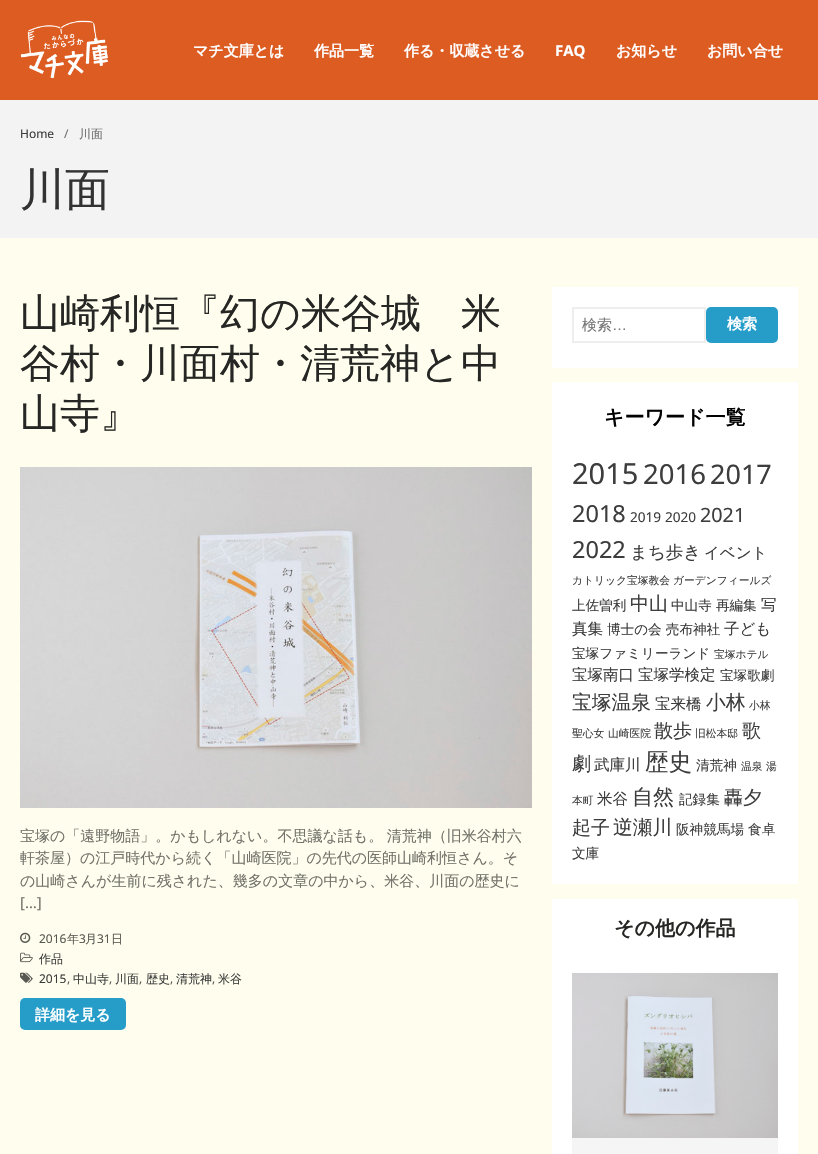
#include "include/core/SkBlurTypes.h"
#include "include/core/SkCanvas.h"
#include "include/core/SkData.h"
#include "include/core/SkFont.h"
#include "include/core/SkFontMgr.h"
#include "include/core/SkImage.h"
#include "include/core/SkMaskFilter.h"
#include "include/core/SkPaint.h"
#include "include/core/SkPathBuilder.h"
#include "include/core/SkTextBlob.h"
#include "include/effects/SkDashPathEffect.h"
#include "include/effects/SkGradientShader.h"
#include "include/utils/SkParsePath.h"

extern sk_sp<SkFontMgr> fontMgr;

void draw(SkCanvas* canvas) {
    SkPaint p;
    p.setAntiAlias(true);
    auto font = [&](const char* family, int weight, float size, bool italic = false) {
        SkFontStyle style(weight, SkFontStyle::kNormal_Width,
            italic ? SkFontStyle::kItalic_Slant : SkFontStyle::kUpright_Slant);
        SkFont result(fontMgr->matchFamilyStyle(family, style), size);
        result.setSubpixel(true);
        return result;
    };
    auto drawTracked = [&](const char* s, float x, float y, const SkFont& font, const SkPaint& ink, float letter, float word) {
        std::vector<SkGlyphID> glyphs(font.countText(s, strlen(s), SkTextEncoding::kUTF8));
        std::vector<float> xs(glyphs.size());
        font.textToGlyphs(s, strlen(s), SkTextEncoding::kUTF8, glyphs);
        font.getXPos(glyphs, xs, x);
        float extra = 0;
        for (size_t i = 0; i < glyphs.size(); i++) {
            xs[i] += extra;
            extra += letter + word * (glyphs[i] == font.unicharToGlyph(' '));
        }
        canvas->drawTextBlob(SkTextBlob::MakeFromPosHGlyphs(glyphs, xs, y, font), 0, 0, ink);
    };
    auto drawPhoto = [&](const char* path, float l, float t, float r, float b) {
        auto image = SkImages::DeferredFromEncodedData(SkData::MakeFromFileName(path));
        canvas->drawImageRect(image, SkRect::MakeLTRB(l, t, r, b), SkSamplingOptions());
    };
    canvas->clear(0xFFFFFEEE);
    p.setColor(0xFFDD5C22);
    canvas->drawRect(SkRect::MakeLTRB(0, 0, 818, 100), p);
    drawPhoto("media/1.png", 20, 20, 108, 79);
    auto font1 = font("WenQuanYi Zen Hei", 700, 15);
    p.setColor(0xFFFFFFFF);
    {
        const struct { const char* s; float x, y; } items[] = {
            {"マチ文庫とは", 193, 56},
            {"作品一覧", 314, 56},
            {"作る・収蔵させる", 404, 56},
        };
        for (auto [s, x, y] : items) {
            canvas->drawString(s, x, y, font1, p);
        }
    }
    auto font2 = font("Noto Sans", 700, 15);
    canvas->drawString("FAQ", 555, 56, font2, p);
    canvas->drawString("お知らせ", 616, 56, font1, p);
    canvas->drawString("お問い合せ", 707, 56, font1, p);
    p.setColor(0xFFF3F3F3);
    canvas->drawRect(SkRect::MakeLTRB(0, 100, 818, 238), p);
    auto font3 = font("Noto Sans", 400, 12);
    p.setColor(0xFF3D3D3D);
    canvas->drawString("Home", 20, 138, font3, p);
    p.setColor(0xFF6D6D6D);
    canvas->drawString("/", 64, 138, font3, p);
    auto font4 = font("WenQuanYi Zen Hei", 500, 12);
    canvas->drawString("川面", 79, 138, font4, p);
    auto font5 = font("WenQuanYi Zen Hei", 500, 45);
    p.setColor(0xFF323232);
    canvas->drawString("川面", 20, 205, font5, p);
    auto font6 = font("WenQuanYi Zen Hei", 500, 40);
    p.setColor(0xFF262624);
    {
        const struct { const char* s; float x, y; } items[] = {
            {"山崎利恒『幻の米谷城　米", 20, 327},
            {"谷村・川面村・清荒神と中", 20, 377},
            {"山寺』", 20, 427},
        };
        for (auto [s, x, y] : items) {
            canvas->drawString(s, x, y, font6, p);
        }
    }
    drawPhoto("media/2.png", 20, 467, 532, 808);
    auto font7 = font("WenQuanYi Zen Hei", 500, 15);
    p.setColor(0xFF73726B);
    drawTracked("宝塚の「遠野物語」。かもしれない。不思議な話も。 清荒神（旧米谷村六", 20, 841, font7, p, 0, -1);
    canvas->drawString("軒茶屋）の江戸時代から続く「山崎医院」の先代の医師山崎利恒さん。そ", 20, 863, font7, p);
    canvas->drawString("の山崎さんが生前に残された、幾多の文章の中から、米谷、川面の歴史に", 20, 886, font7, p);
    auto font8 = font("Noto Sans", 400, 15);
    canvas->drawString("[…]", 20, 908, font8, p);
    drawPhoto("media/3.png", 20, 932, 31, 943);
    p.setColor(0xFF595953);
    canvas->drawString("2016", 39, 943, font3, p);
    canvas->drawString("年", 67, 943, font4, p);
    canvas->drawString("3", 79, 943, font3, p);
    canvas->drawString("月", 85, 943, font4, p);
    canvas->drawString("31", 97, 943, font3, p);
    canvas->drawString("日", 111, 943, font4, p);
    drawPhoto("media/4.png", 20, 952, 33, 963);
    p.setColor(0xFF3D3D3D);
    canvas->drawString("作品", 39, 963, font4, p);
    drawPhoto("media/5.png", 20, 972, 33, 983);
    canvas->drawString("2015", 39, 983, font3, p);
    p.setColor(0xFF595953);
    canvas->drawString(",", 67, 983, font3, p);
    p.setColor(0xFF3D3D3D);
    canvas->drawString("中山寺", 73, 983, font4, p);
    p.setColor(0xFF595953);
    canvas->drawString(",", 109, 983, font3, p);
    p.setColor(0xFF3D3D3D);
    canvas->drawString("川面", 115, 983, font4, p);
    p.setColor(0xFF595953);
    canvas->drawString(",", 139, 983, font3, p);
    p.setColor(0xFF3D3D3D);
    canvas->drawString("歴史", 146, 983, font4, p);
    p.setColor(0xFF595953);
    canvas->drawString(",", 170, 983, font3, p);
    p.setColor(0xFF3D3D3D);
    canvas->drawString("清荒神", 176, 983, font4, p);
    p.setColor(0xFF595953);
    canvas->drawString(",", 212, 983, font3, p);
    p.setColor(0xFF3D3D3D);
    canvas->drawString("米谷", 218, 983, font4, p);
    p.setColor(0xFF259DC8);
    canvas->drawRoundRect(SkRect::MakeLTRB(20, 998, 126, 1030), 5, 5, p);
    p.setColor(0xFFFFFFFF);
    canvas->drawString("詳細を見る", 35, 1020, font1, p);
    canvas->drawRect(SkRect::MakeLTRB(552, 287, 798, 368), p);
    p.setStyle(SkPaint::kStroke_Style);
    p.setStrokeWidth(2);
    p.setColor(0xFFEEEEEE);
    canvas->drawRect(SkRect::MakeLTRB(573, 308, 705, 342), p);
    p.setStyle(SkPaint::kFill_Style);
    p.setColor(0xFF757575);
    canvas->drawString("検索", 582, 330, font7, p);
    auto font9 = font("Liberation Sans", 400, 15);
    canvas->drawString("…", 612, 330, font9, p);
    p.setColor(0xFF259DC8);
    canvas->drawRoundRect(SkRect::MakeLTRB(706, 307, 778, 343), 5, 5, p);
    p.setColor(0xFFFFFFFF);
    canvas->drawString("検索", 727, 329, font1, p);
    canvas->drawRect(SkRect::MakeLTRB(552, 382, 798, 884), p);
    auto font10 = font("WenQuanYi Zen Hei", 700, 20);
    p.setColor(0xFF000000);
    canvas->drawString("キーワード一覧", 604, 424, font10, p);
    auto font11 = font("Noto Sans", 400, 29);
    p.setColor(0xFF3D3D3D);
    canvas->drawString("2015", 572, 484, font11, p);
    auto font12 = font("Noto Sans", 400, 27.5f);
    canvas->drawString("2016", 643, 484, font12, p);
    auto font13 = font("Noto Sans", 400, 27);
    canvas->drawString("2017", 710, 484, font13, p);
    auto font14 = font("Noto Sans", 400, 23.5f);
    canvas->drawString("2018", 572, 522, font14, p);
    auto font15 = font("Noto Sans", 400, 13.6f);
    canvas->drawString("2019", 630, 522, font15, p);
    canvas->drawString("2020", 665, 522, font15, p);
    auto font16 = font("Noto Sans", 400, 19.75f);
    canvas->drawString("2021", 700, 522, font16, p);
    canvas->drawString("2022", 572, 558, font14, p);
    auto font17 = font("WenQuanYi Zen Hei", 500, 17.5f);
    canvas->drawString("まち歩き", 630, 558, font17, p);
    auto font18 = font("WenQuanYi Zen Hei", 500, 15.5f);
    canvas->drawString("イベント", 704, 558, font18, p);
    auto font19 = font("WenQuanYi Zen Hei", 500, 10.75f);
    canvas->drawString("カトリック宝塚教会", 572, 584, font19, p);
    canvas->drawString("ガーデンフィールズ", 673, 584, font19, p);
    auto font20 = font("WenQuanYi Zen Hei", 500, 13.6f);
    canvas->drawString("上佐曽利", 572, 610, font20, p);
    auto font21 = font("WenQuanYi Zen Hei", 500, 19);
    canvas->drawString("中山", 630, 610, font21, p);
    canvas->drawString("中山寺 再編集", 671, 610, font20, p);
    canvas->drawString("写", 761, 610, font18, p);
    canvas->drawString("真集", 572, 634, font18, p);
    canvas->drawString("博士の会 売布神社", 607, 634, font20, p);
    canvas->drawString("子ども", 724, 634, font18, p);
    canvas->drawString("宝塚ファミリーランド", 572, 658, font20, p);
    canvas->drawString("宝塚ホテル", 714, 658, font19, p);
    canvas->drawString("宝塚南口", 572, 680, font18, p);
    canvas->drawString("宝塚学検定", 638, 680, font18, p);
    canvas->drawString("宝塚歌劇", 720, 680, font20, p);
    auto font22 = font("WenQuanYi Zen Hei", 500, 19.75f);
    canvas->drawString("宝塚温泉", 572, 709, font22, p);
    canvas->drawString("宝来橋", 655, 709, font18, p);
    canvas->drawString("小林", 706, 709, font22, p);
    {
        const struct { const char* s; float x, y; } items[] = {
            {"小林", 749, 709},
            {"聖心女", 572, 737},
            {"山崎医院", 608, 737},
        };
        for (auto [s, x, y] : items) {
            canvas->drawString(s, x, y, font19, p);
        }
    }
    canvas->drawString("散歩", 654, 737, font21, p);
    canvas->drawString("旧松本邸", 695, 737, font19, p);
    canvas->drawString("歌", 742, 737, font21, p);
    canvas->drawString("劇", 572, 770, font21, p);
    canvas->drawString("武庫川", 594, 770, font18, p);
    auto font23 = font("WenQuanYi Zen Hei", 500, 23.5f);
    canvas->drawString("歴史", 645, 770, font23, p);
    canvas->drawString("清荒神", 696, 770, font20, p);
    {
        const struct { const char* s; float x, y; } items[] = {
            {"温泉", 741, 770},
            {"湯", 766, 770},
            {"本町", 572, 804},
        };
        for (auto [s, x, y] : items) {
            canvas->drawString(s, x, y, font19, p);
        }
    }
    canvas->drawString("米谷", 597, 804, font18, p);
    auto font24 = font("WenQuanYi Zen Hei", 500, 21);
    canvas->drawString("自然", 632, 804, font24, p);
    canvas->drawString("記録集", 679, 804, font20, p);
    canvas->drawString("轟夕", 724, 804, font21, p);
    canvas->drawString("起子", 572, 834, font21, p);
    canvas->drawString("逆瀬川", 613, 834, font22, p);
    canvas->drawString("阪神競馬場 食卓", 676, 834, font20, p);
    canvas->drawString("文庫", 572, 858, font20, p);
    p.setColor(0xFFFFFFFF);
    canvas->drawRect(SkRect::MakeLTRB(552, 899, 798, 1154), p);
    p.setColor(0xFF262624);
    canvas->drawString("その他の作品", 614, 935, font10, p);
    drawPhoto("media/6.png", 572, 973, 778, 1138);
    p.setColor(0xFFF5F5F5);
    canvas->drawRect(SkRect::MakeLTRB(572, 1138, 778, 1154), p);
}
